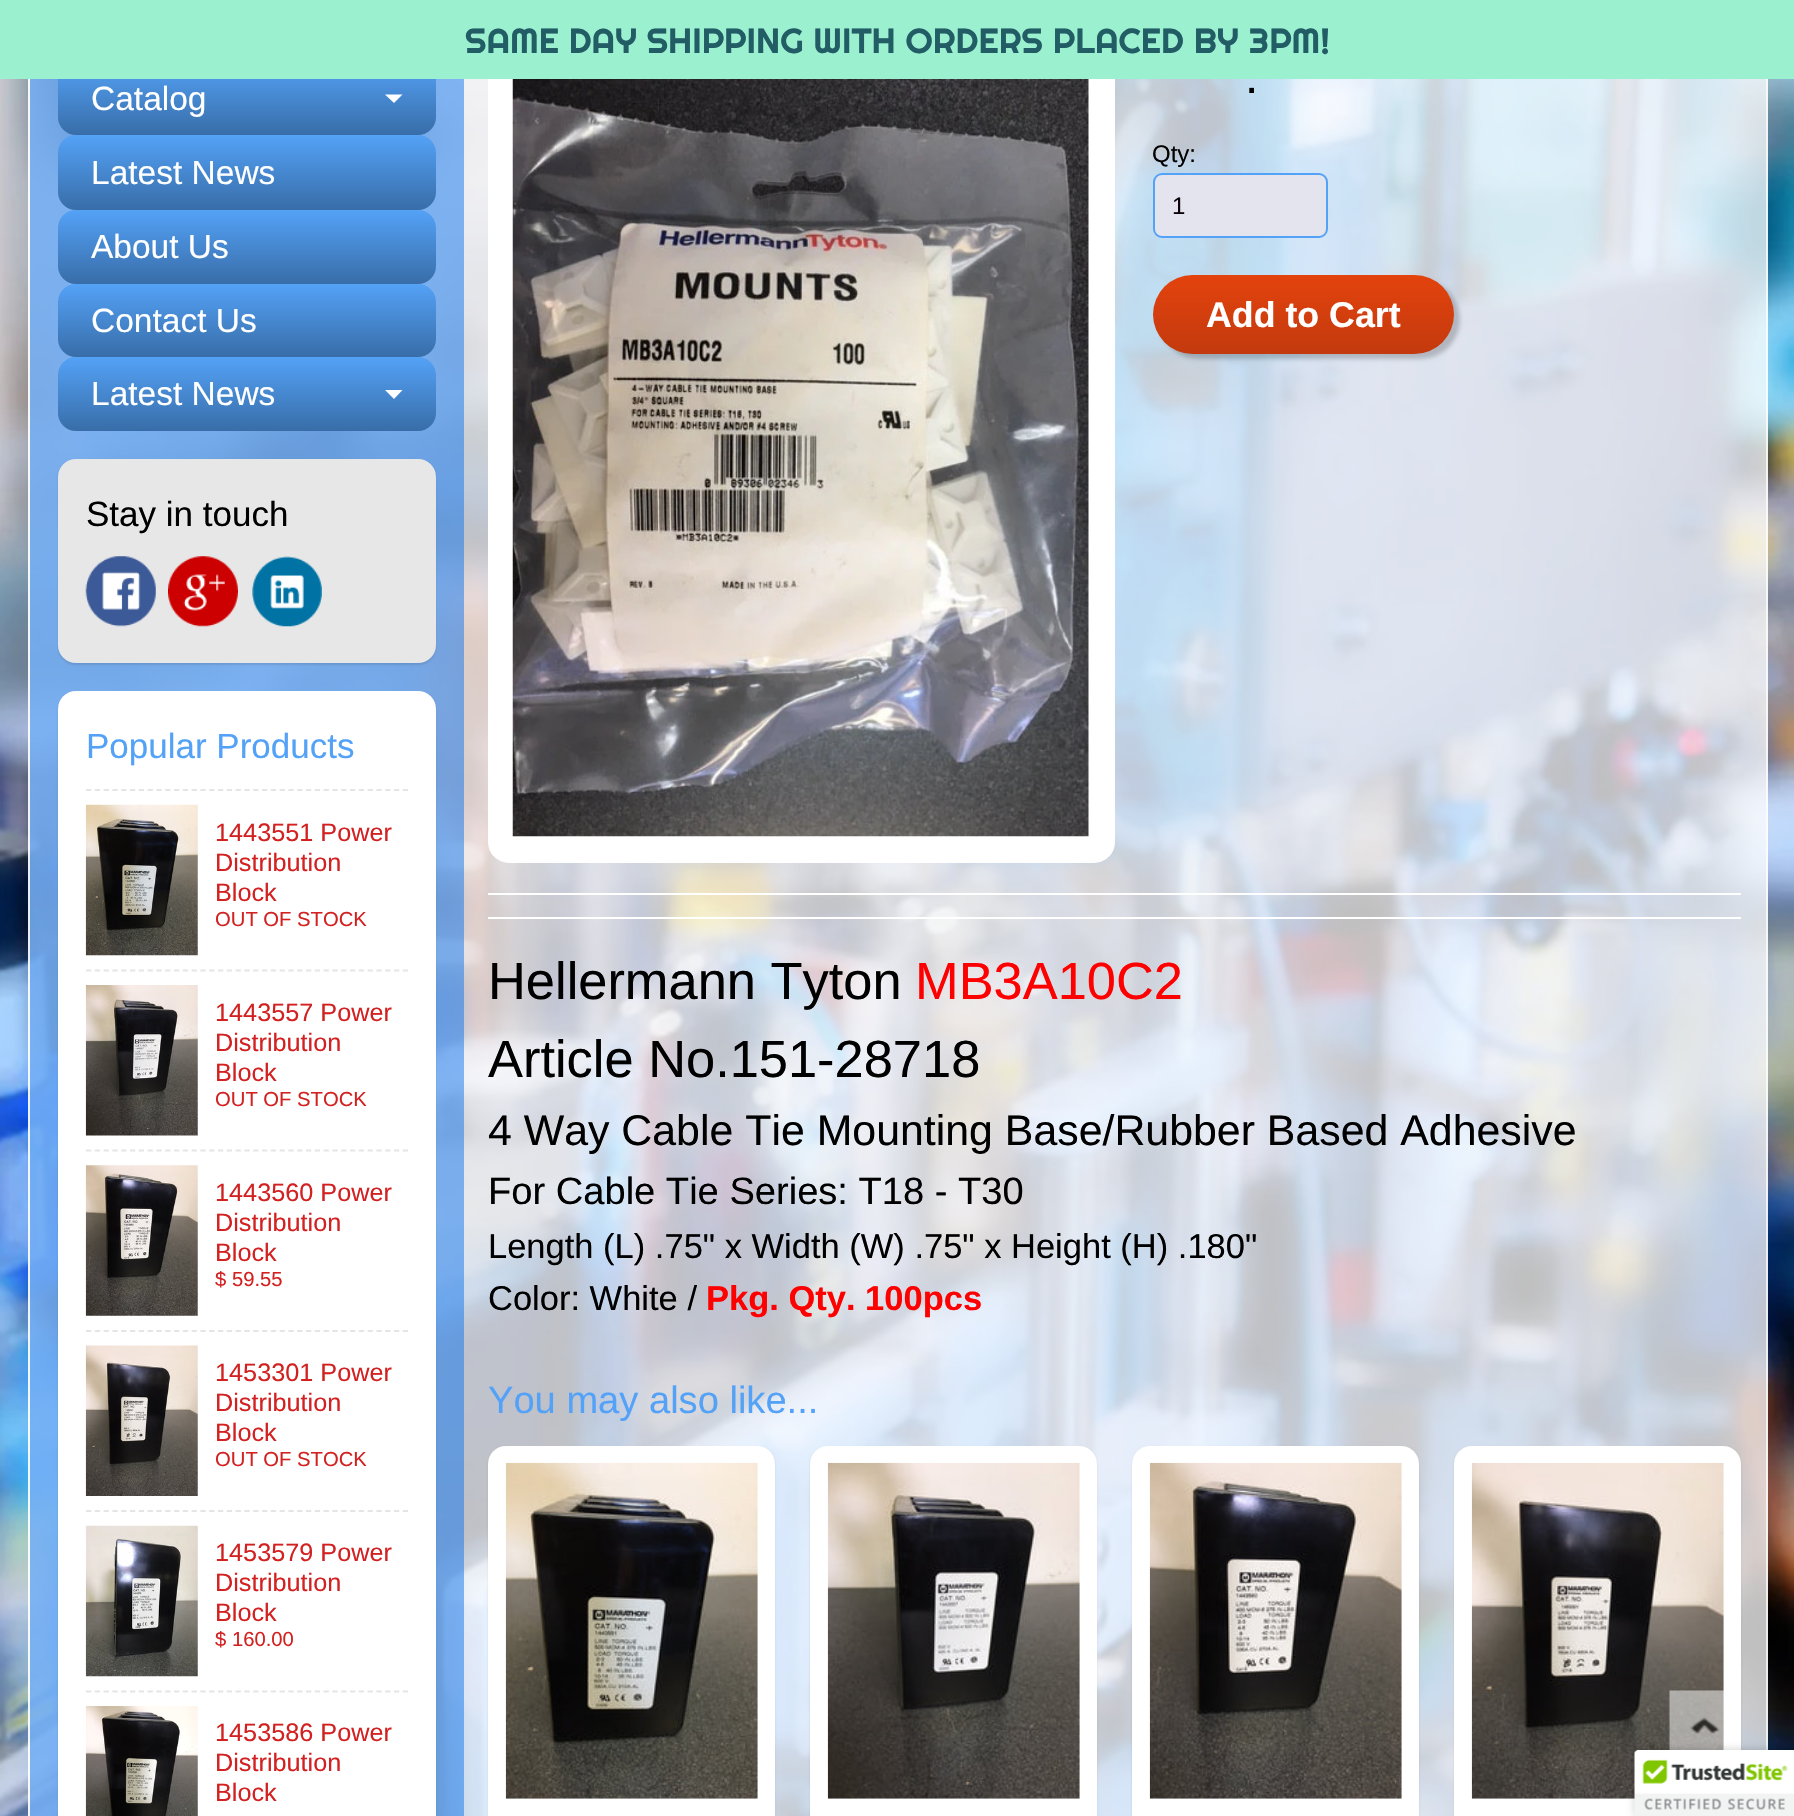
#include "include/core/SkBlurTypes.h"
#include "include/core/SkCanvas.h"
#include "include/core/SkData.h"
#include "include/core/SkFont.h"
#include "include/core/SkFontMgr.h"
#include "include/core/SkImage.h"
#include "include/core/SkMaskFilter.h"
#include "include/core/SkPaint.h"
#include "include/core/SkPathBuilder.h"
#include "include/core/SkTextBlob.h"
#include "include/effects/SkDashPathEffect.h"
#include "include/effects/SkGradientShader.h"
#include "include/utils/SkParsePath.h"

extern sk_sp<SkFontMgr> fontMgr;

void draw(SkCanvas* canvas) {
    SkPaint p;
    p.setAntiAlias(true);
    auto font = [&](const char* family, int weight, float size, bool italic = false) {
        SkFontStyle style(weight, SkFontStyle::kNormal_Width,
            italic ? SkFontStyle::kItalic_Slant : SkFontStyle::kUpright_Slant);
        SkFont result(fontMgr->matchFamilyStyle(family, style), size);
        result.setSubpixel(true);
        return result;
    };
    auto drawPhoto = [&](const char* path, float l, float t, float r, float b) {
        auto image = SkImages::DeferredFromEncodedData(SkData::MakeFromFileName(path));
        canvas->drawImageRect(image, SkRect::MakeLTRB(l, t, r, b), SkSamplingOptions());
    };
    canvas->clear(0xFFFFFFFF);
    drawPhoto("media/1.png", 0, 79, 1794, 1816);
    p.setStyle(SkPaint::kStroke_Style);
    p.setStrokeWidth(2);
    p.setColor(0xB3FFFFFF);
    canvas->drawRect(SkRect::MakeLTRB(29, -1, 1767, 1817), p);
    p.setStyle(SkPaint::kFill_Style);
    p.setColor(0x800D74EE);
    canvas->drawRect(SkRect::MakeLTRB(30, 79, 464, 1816), p);
    {
        const SkColor colors[] = {0xFF54A2F7, 0xFF386DA8};
        const float stops[] = {0, 1};
        const SkPoint ends[] = {{247, 61}, {247, 135}};
        p.setShader(SkGradientShader::MakeLinear(ends, colors, stops, 2, SkTileMode::kClamp));
        p.setAlpha(255);
    }
    canvas->drawRoundRect(SkRect::MakeLTRB(58, 61, 436, 135), 18, 18, p);
    p.setShader(nullptr);
    p.setColor(0xFFFFFFFF);
    canvas->drawRoundRect(SkRect::MakeLTRB(489, 43, 1114, 862), 20, 20, p);
    p.setStyle(SkPaint::kStroke_Style);
    canvas->drawRoundRect(SkRect::MakeLTRB(489, 43, 1114, 862), 20, 20, p);
    p.setStyle(SkPaint::kFill_Style);
    p.setColor(0xFF9BF0D0);
    canvas->drawRect(SkRect::MakeLTRB(0, 0, 1794, 79), p);
    auto font1 = font("Righteous", 400, 35);
    p.setColor(0xFF225D66);
    canvas->drawString("SAME DAY SHIPPING WITH ORDERS PLACED BY 3PM!", 465, 53, font1, p);
    auto font2 = font("Liberation Sans", 400, 33.5f);
    p.setColor(0xFFFFFFFF);
    canvas->drawString("Catalog", 91, 110, font2, p);
    canvas->drawPath(SkPathBuilder().moveTo(385, 94.5f).lineTo(402.5f, 94.5f).lineTo(394, 103).close().detach(), p);
    {
        const SkColor colors[] = {0xFF54A2F7, 0xFF386DA8};
        const float stops[] = {0, 1};
        const SkPoint ends[] = {{247, 135}, {247, 210}};
        p.setShader(SkGradientShader::MakeLinear(ends, colors, stops, 2, SkTileMode::kClamp));
        p.setAlpha(255);
    }
    canvas->drawRoundRect(SkRect::MakeLTRB(58, 135, 436, 210), 18, 18, p);
    p.setShader(nullptr);
    p.setColor(0xFFFFFFFF);
    canvas->drawString("Latest News", 91, 184, font2, p);
    {
        const SkColor colors[] = {0xFF54A2F7, 0xFF386DA8};
        const float stops[] = {0, 1};
        const SkPoint ends[] = {{247, 210}, {247, 284}};
        p.setShader(SkGradientShader::MakeLinear(ends, colors, stops, 2, SkTileMode::kClamp));
        p.setAlpha(255);
    }
    canvas->drawRoundRect(SkRect::MakeLTRB(58, 210, 436, 284), 18, 18, p);
    p.setShader(nullptr);
    p.setColor(0xFFFFFFFF);
    canvas->drawString("About Us", 91, 258, font2, p);
    {
        const SkColor colors[] = {0xFF54A2F7, 0xFF386DA8};
        const float stops[] = {0, 1};
        const SkPoint ends[] = {{247, 284}, {247, 357}};
        p.setShader(SkGradientShader::MakeLinear(ends, colors, stops, 2, SkTileMode::kClamp));
        p.setAlpha(255);
    }
    canvas->drawRoundRect(SkRect::MakeLTRB(58, 284, 436, 357), 18, 18, p);
    p.setShader(nullptr);
    p.setColor(0xFFFFFFFF);
    canvas->drawString("Contact Us", 91, 332, font2, p);
    {
        const SkColor colors[] = {0xFF54A2F7, 0xFF386DA8};
        const float stops[] = {0, 1};
        const SkPoint ends[] = {{247, 357}, {247, 431}};
        p.setShader(SkGradientShader::MakeLinear(ends, colors, stops, 2, SkTileMode::kClamp));
        p.setAlpha(255);
    }
    canvas->drawRoundRect(SkRect::MakeLTRB(58, 357, 436, 431), 18, 18, p);
    p.setShader(nullptr);
    p.setColor(0xFFFFFFFF);
    canvas->drawString("Latest News", 91, 405, font2, p);
    canvas->drawPath(SkPathBuilder().moveTo(385, 390).lineTo(402.5f, 390).lineTo(394, 399).close().detach(), p);
    p.setColor(0x1A000000);
    p.setMaskFilter(SkMaskFilter::MakeBlur(kNormal_SkBlurStyle, 1));
    canvas->drawRoundRect(SkRect::MakeLTRB(58, 460, 436, 665), 18, 18, p);
    p.setMaskFilter(nullptr);
    p.setColor(0xFFE7E7E7);
    canvas->drawRoundRect(SkRect::MakeLTRB(58, 459, 436, 663), 18, 18, p);
    auto font3 = font("Liberation Sans", 400, 35);
    p.setColor(0xFF000000);
    canvas->drawString("Stay in touch", 86, 526, font3, p);
    drawPhoto("media/2.png", 85, 556, 156, 627);
    drawPhoto("media/3.png", 168, 556, 238, 627);
    drawPhoto("media/4.png", 252, 556, 322, 627);
    p.setColor(0x1A000000);
    p.setMaskFilter(SkMaskFilter::MakeBlur(kNormal_SkBlurStyle, 1));
    canvas->drawRoundRect(SkRect::MakeLTRB(58, 693, 436, 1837), 18, 18, p);
    p.setMaskFilter(nullptr);
    p.setColor(0xFFFFFFFF);
    canvas->drawRoundRect(SkRect::MakeLTRB(58, 691, 436, 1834), 18, 18, p);
    p.setColor(0xFF54A2F7);
    canvas->drawString("Popular Products", 86, 758, font3, p);
    p.setStyle(SkPaint::kStroke_Style);
    p.setStrokeWidth(1.8f);
    p.setColor(0xFFE5E5E5);
    p.setPathEffect(SkDashPathEffect::Make({{5.25f, 3.55f}}, 0));
    canvas->drawPath(SkPathBuilder().moveTo(86, 790).lineTo(408, 790).detach(), p);
    p.setPathEffect(nullptr);
    drawPhoto("media/5.png", 85, 804, 198, 956);
    auto font4 = font("Liberation Sans", 400, 25.25f);
    p.setStyle(SkPaint::kFill_Style);
    p.setColor(0xFFD32020);
    {
        const struct { const char* s; float x, y; } items[] = {
            {"1443551 Power", 215, 841},
            {"Distribution", 215, 871},
            {"Block", 215, 901},
        };
        for (auto [s, x, y] : items) {
            canvas->drawString(s, x, y, font4, p);
        }
    }
    auto font5 = font("Liberation Sans", 400, 20.25f);
    canvas->drawString("OUT OF STOCK", 215, 926, font5, p);
    p.setStyle(SkPaint::kStroke_Style);
    p.setColor(0xFFE5E5E5);
    p.setPathEffect(SkDashPathEffect::Make({{5.25f, 3.55f}}, 0));
    canvas->drawPath(SkPathBuilder().moveTo(86, 970.5f).lineTo(408, 970.5f).detach(), p);
    p.setPathEffect(nullptr);
    drawPhoto("media/6.png", 85, 985, 198, 1136);
    p.setStyle(SkPaint::kFill_Style);
    p.setColor(0xFFD32020);
    {
        const struct { const char* s; float x, y; } items[] = {
            {"1443557 Power", 215, 1021},
            {"Distribution", 215, 1051},
            {"Block", 215, 1081},
        };
        for (auto [s, x, y] : items) {
            canvas->drawString(s, x, y, font4, p);
        }
    }
    canvas->drawString("OUT OF STOCK", 215, 1106, font5, p);
    p.setStyle(SkPaint::kStroke_Style);
    p.setColor(0xFFE5E5E5);
    p.setPathEffect(SkDashPathEffect::Make({{5.25f, 3.55f}}, 0));
    canvas->drawPath(SkPathBuilder().moveTo(86, 1150.5f).lineTo(408, 1150.5f).detach(), p);
    p.setPathEffect(nullptr);
    drawPhoto("media/7.png", 85, 1165, 198, 1316);
    p.setStyle(SkPaint::kFill_Style);
    p.setColor(0xFFD32020);
    {
        const struct { const char* s; float x, y; } items[] = {
            {"1443560 Power", 215, 1201},
            {"Distribution", 215, 1231},
            {"Block", 215, 1261},
        };
        for (auto [s, x, y] : items) {
            canvas->drawString(s, x, y, font4, p);
        }
    }
    canvas->drawString("$ 59.55", 215, 1286, font5, p);
    p.setStyle(SkPaint::kStroke_Style);
    p.setColor(0xFFE5E5E5);
    p.setPathEffect(SkDashPathEffect::Make({{5.25f, 3.55f}}, 0));
    canvas->drawPath(SkPathBuilder().moveTo(86, 1331).lineTo(408, 1331).detach(), p);
    p.setPathEffect(nullptr);
    drawPhoto("media/8.png", 85, 1345, 198, 1496);
    p.setStyle(SkPaint::kFill_Style);
    p.setColor(0xFFD32020);
    {
        const struct { const char* s; float x, y; } items[] = {
            {"1453301 Power", 215, 1381},
            {"Distribution", 215, 1411},
            {"Block", 215, 1441},
        };
        for (auto [s, x, y] : items) {
            canvas->drawString(s, x, y, font4, p);
        }
    }
    canvas->drawString("OUT OF STOCK", 215, 1466, font5, p);
    p.setStyle(SkPaint::kStroke_Style);
    p.setColor(0xFFE5E5E5);
    p.setPathEffect(SkDashPathEffect::Make({{5.25f, 3.55f}}, 0));
    canvas->drawPath(SkPathBuilder().moveTo(86, 1511).lineTo(408, 1511).detach(), p);
    p.setPathEffect(nullptr);
    drawPhoto("media/9.png", 85, 1525, 198, 1677);
    p.setStyle(SkPaint::kFill_Style);
    p.setColor(0xFFD32020);
    {
        const struct { const char* s; float x, y; } items[] = {
            {"1453579 Power", 215, 1561},
            {"Distribution", 215, 1591},
            {"Block", 215, 1621},
        };
        for (auto [s, x, y] : items) {
            canvas->drawString(s, x, y, font4, p);
        }
    }
    canvas->drawString("$ 160.00", 215, 1646, font5, p);
    p.setStyle(SkPaint::kStroke_Style);
    p.setColor(0xFFE5E5E5);
    p.setPathEffect(SkDashPathEffect::Make({{5.25f, 3.55f}}, 0));
    canvas->drawPath(SkPathBuilder().moveTo(86, 1691.5f).lineTo(408, 1691.5f).detach(), p);
    p.setPathEffect(nullptr);
    drawPhoto("media/10.png", 85, 1706, 198, 1816);
    p.setStyle(SkPaint::kFill_Style);
    p.setColor(0xFFD32020);
    {
        const struct { const char* s; float x, y; } items[] = {
            {"1453586 Power", 215, 1741},
            {"Distribution", 215, 1771},
            {"Block", 215, 1801},
        };
        for (auto [s, x, y] : items) {
            canvas->drawString(s, x, y, font4, p);
        }
    }
    drawPhoto("media/11.png", 512, 79, 1089, 837);
    auto font6 = font("Liberation Sans", 400, 48);
    p.setColor(0xFF000000);
    canvas->drawString(".", 1245, 93, font6, p);
    auto font7 = font("Liberation Sans", 400, 24);
    canvas->drawString("Qty:", 1152, 162, font7, p);
    p.setColor(0xFFE4E4EF);
    canvas->drawRoundRect(SkRect::MakeLTRB(1154, 174, 1327, 237), 8, 8, p);
    p.setStyle(SkPaint::kStroke_Style);
    p.setStrokeWidth(2);
    p.setColor(0xFF54A2F7);
    canvas->drawRoundRect(SkRect::MakeLTRB(1154, 174, 1327, 237), 8, 8, p);
    p.setStyle(SkPaint::kFill_Style);
    p.setColor(0xFF0B0106);
    canvas->drawString("1", 1172, 214, font7, p);
    p.setColor(0x33000000);
    p.setMaskFilter(SkMaskFilter::MakeBlur(kNormal_SkBlurStyle, 2));
    canvas->drawRoundRect(SkRect::MakeLTRB(1159, 280, 1460, 359), 39.5f, 39.5f, p);
    p.setMaskFilter(nullptr);
    {
        const SkColor colors[] = {0xFFE3430D, 0xFFC33A0E};
        const float stops[] = {0, 1};
        const SkPoint ends[] = {{1304, 275}, {1304, 354}};
        p.setShader(SkGradientShader::MakeLinear(ends, colors, stops, 2, SkTileMode::kClamp));
        p.setAlpha(255);
    }
    canvas->drawRoundRect(SkRect::MakeLTRB(1153, 275, 1454, 354), 39.5f, 39.5f, p);
    auto font8 = font("Liberation Sans", 700, 35.75f);
    p.setShader(nullptr);
    p.setColor(0xFFFFFFFF);
    canvas->drawString("Add to Cart", 1206, 327, font8, p);
    canvas->drawRect(SkRect::MakeLTRB(488, 893, 1741, 895), p);
    canvas->drawRect(SkRect::MakeLTRB(488, 917, 1741, 919), p);
    auto font9 = font("Liberation Sans", 400, 52.4f);
    p.setColor(0xFF000000);
    canvas->drawString("Hellermann Tyton", 488, 999, font9, p);
    p.setColor(0xFFFF0000);
    canvas->drawString("MB3A10C2", 915, 999, font9, p);
    p.setColor(0xFF000000);
    canvas->drawString("Article No.151-28718", 488, 1077, font9, p);
    auto font10 = font("Liberation Sans", 400, 42.85f);
    canvas->drawString("4 Way Cable Tie Mounting Base/Rubber Based Adhesive", 488, 1145, font10, p);
    auto font11 = font("Liberation Sans", 400, 38.1f);
    canvas->drawString("For Cable Tie Series: T18 - T30", 488, 1204, font11, p);
    auto font12 = font("Liberation Sans", 400, 34.5f);
    canvas->drawString("Length (L) .75\" x Width (W) .75\" x Height (H) .180\"", 488, 1258, font12, p);
    canvas->drawString("Color: White /", 488, 1310, font12, p);
    auto font13 = font("Liberation Sans", 700, 34.5f);
    p.setColor(0xFFFF0000);
    canvas->drawString("Pkg. Qty. 100pcs", 706, 1310, font13, p);
    p.setColor(0xFF54A2F7);
    canvas->drawString("You may also like...", 488, 1413, font11, p);
    p.setColor(0x1A000000);
    p.setMaskFilter(SkMaskFilter::MakeBlur(kNormal_SkBlurStyle, 1));
    canvas->drawRoundRect(SkRect::MakeLTRB(488, 1447, 775, 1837), 18, 18, p);
    p.setMaskFilter(nullptr);
    p.setColor(0xFFFFFFFF);
    canvas->drawRoundRect(SkRect::MakeLTRB(488, 1446, 775, 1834), 18, 18, p);
    drawPhoto("media/12.png", 505, 1462, 758, 1799);
    p.setColor(0x1A000000);
    p.setMaskFilter(SkMaskFilter::MakeBlur(kNormal_SkBlurStyle, 1));
    canvas->drawRoundRect(SkRect::MakeLTRB(810, 1447, 1097, 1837), 18, 18, p);
    p.setMaskFilter(nullptr);
    p.setColor(0xFFFFFFFF);
    canvas->drawRoundRect(SkRect::MakeLTRB(810, 1446, 1097, 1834), 18, 18, p);
    drawPhoto("media/13.png", 827, 1462, 1080, 1799);
    p.setColor(0x1A000000);
    p.setMaskFilter(SkMaskFilter::MakeBlur(kNormal_SkBlurStyle, 1));
    canvas->drawRoundRect(SkRect::MakeLTRB(1132, 1447, 1419, 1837), 18, 18, p);
    p.setMaskFilter(nullptr);
    p.setColor(0xFFFFFFFF);
    canvas->drawRoundRect(SkRect::MakeLTRB(1132, 1446, 1419, 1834), 18, 18, p);
    drawPhoto("media/14.png", 1149, 1462, 1402, 1799);
    p.setColor(0x1A000000);
    p.setMaskFilter(SkMaskFilter::MakeBlur(kNormal_SkBlurStyle, 1));
    canvas->drawRoundRect(SkRect::MakeLTRB(1454, 1447, 1741, 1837), 18, 18, p);
    p.setMaskFilter(nullptr);
    p.setColor(0xFFFFFFFF);
    canvas->drawRoundRect(SkRect::MakeLTRB(1454, 1446, 1741, 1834), 18, 18, p);
    drawPhoto("media/15.png", 1471, 1463, 1724, 1799);
    drawPhoto("media/16.png", 1669, 1690, 1724, 1750);
    p.setColor(0x33000000);
    p.setMaskFilter(SkMaskFilter::MakeBlur(kNormal_SkBlurStyle, 4.5f));
    canvas->drawRoundRect(SkRect::MakeLTRB(1635, 1750, 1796, 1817), 4, 4, p);
    p.setMaskFilter(nullptr);
    p.setColor(0xFFFFFFFF);
    canvas->drawPath(SkPathBuilder().moveTo(1639, 1750).lineTo(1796, 1750).lineTo(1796, 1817).lineTo(1635, 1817).lineTo(1635, 1754).cubicTo(1635, 1752, 1637, 1750, 1639, 1750).close().detach(), p);
    drawPhoto("media/17.png", 1634, 1750, 1794, 1816);
}
